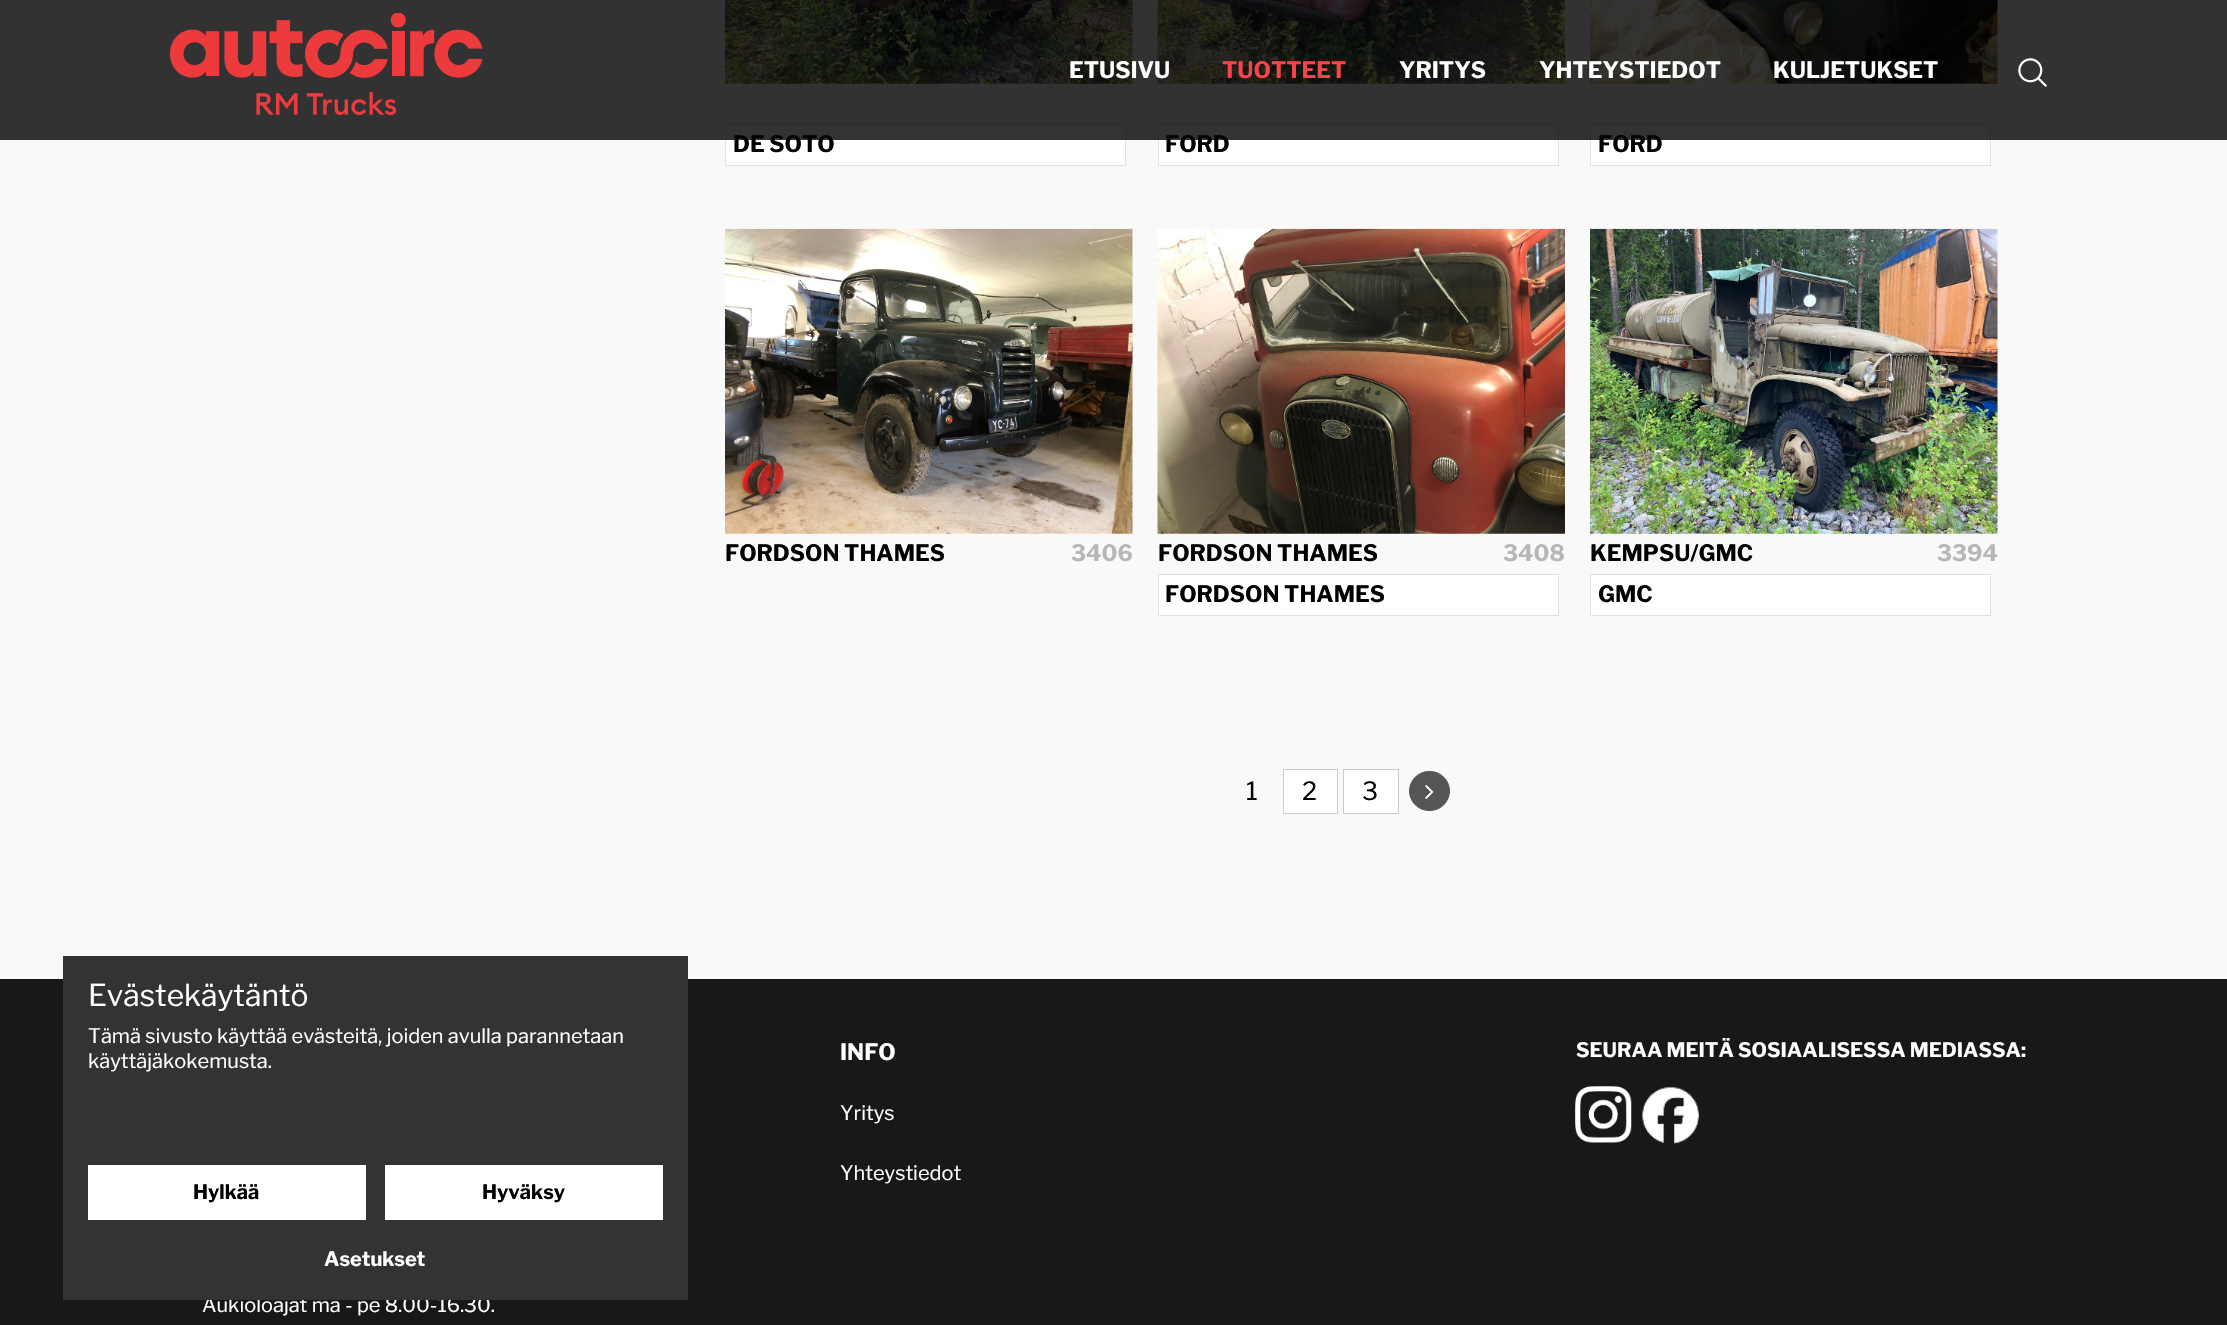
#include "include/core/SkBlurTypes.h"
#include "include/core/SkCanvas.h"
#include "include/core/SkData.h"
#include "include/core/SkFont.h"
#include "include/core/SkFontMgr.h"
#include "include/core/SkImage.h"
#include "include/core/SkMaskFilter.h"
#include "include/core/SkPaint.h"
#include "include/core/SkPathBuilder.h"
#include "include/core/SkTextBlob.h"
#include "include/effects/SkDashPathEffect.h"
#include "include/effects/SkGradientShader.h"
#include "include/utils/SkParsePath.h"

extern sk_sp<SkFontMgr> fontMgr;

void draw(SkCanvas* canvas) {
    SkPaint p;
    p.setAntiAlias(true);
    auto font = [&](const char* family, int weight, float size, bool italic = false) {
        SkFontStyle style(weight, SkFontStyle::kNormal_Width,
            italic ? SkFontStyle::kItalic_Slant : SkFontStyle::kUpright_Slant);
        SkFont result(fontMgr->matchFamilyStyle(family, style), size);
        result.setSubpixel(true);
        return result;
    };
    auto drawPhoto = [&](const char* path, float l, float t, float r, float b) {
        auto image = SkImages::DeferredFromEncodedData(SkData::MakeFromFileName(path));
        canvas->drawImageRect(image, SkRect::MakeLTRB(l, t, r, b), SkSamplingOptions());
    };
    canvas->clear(0xFFF9F9F9);
    drawPhoto("media/3.png", 725, 0, 1133, 84);
    p.setColor(0xFFFFFFFF);
    canvas->drawRect(SkRect::MakeLTRB(725.5f, 124.5f, 1125.5f, 165.5f), p);
    p.setStyle(SkPaint::kStroke_Style);
    p.setStrokeWidth(1);
    p.setColor(0xFFE1E1E1);
    canvas->drawRect(SkRect::MakeLTRB(725.5f, 124.5f, 1125.5f, 165.5f), p);
    auto font1 = font("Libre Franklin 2", 100, 22.5f);
    p.setStyle(SkPaint::kFill_Style);
    p.setColor(0xFF000000);
    canvas->drawString("DE SOTO", 733, 152, font1, p);
    drawPhoto("media/4.png", 1157, 0, 1565, 84);
    p.setColor(0xFFFFFFFF);
    canvas->drawRect(SkRect::MakeLTRB(1158.5f, 124.5f, 1558.5f, 165.5f), p);
    p.setStyle(SkPaint::kStroke_Style);
    p.setColor(0xFFE1E1E1);
    canvas->drawRect(SkRect::MakeLTRB(1158.5f, 124.5f, 1558.5f, 165.5f), p);
    p.setStyle(SkPaint::kFill_Style);
    p.setColor(0xFF000000);
    canvas->drawString("FORD", 1165, 152, font1, p);
    drawPhoto("media/5.png", 1590, 0, 1998, 84);
    p.setColor(0xFFFFFFFF);
    canvas->drawRect(SkRect::MakeLTRB(1590.5f, 124.5f, 1990.5f, 165.5f), p);
    p.setStyle(SkPaint::kStroke_Style);
    p.setColor(0xFFE1E1E1);
    canvas->drawRect(SkRect::MakeLTRB(1590.5f, 124.5f, 1990.5f, 165.5f), p);
    p.setStyle(SkPaint::kFill_Style);
    p.setColor(0xFF000000);
    canvas->drawString("FORD", 1598, 152, font1, p);
    p.setColor(0xCC000000);
    canvas->drawRect(SkRect::MakeLTRB(0, 0, 2227, 140), p);
    drawPhoto("media/1.png", 170, 13, 483, 115);
    p.setColor(0xFFFFFFFF);
    canvas->drawString("ETUSIVU", 1069, 78, font1, p);
    p.setColor(0xFFF44548);
    canvas->drawString("TUOTTEET", 1222, 78, font1, p);
    p.setColor(0xFFFFFFFF);
    {
        const struct { const char* s; float x, y; } items[] = {
            {"YRITYS", 1399, 78},
            {"YHTEYSTIEDOT", 1539, 78},
            {"KULJETUKSET", 1773, 78},
        };
        for (auto [s, x, y] : items) {
            canvas->drawString(s, x, y, font1, p);
        }
    }
    drawPhoto("media/2.png", 2018, 58, 2047, 87);
    drawPhoto("media/6.png", 725, 228, 1133, 534);
    p.setColor(0xFF000000);
    canvas->drawString("FORDSON THAMES", 725, 561, font1, p);
    p.setColor(0xFFB7B7B7);
    canvas->drawString("3406", 1071, 561, font1, p);
    drawPhoto("media/7.png", 1157, 228, 1565, 534);
    p.setColor(0xFF000000);
    canvas->drawString("FORDSON THAMES", 1158, 561, font1, p);
    p.setColor(0xFFB7B7B7);
    canvas->drawString("3408", 1503, 561, font1, p);
    p.setColor(0xFFFFFFFF);
    canvas->drawRect(SkRect::MakeLTRB(1158.5f, 574.5f, 1558.5f, 615.5f), p);
    p.setStyle(SkPaint::kStroke_Style);
    p.setColor(0xFFE1E1E1);
    canvas->drawRect(SkRect::MakeLTRB(1158.5f, 574.5f, 1558.5f, 615.5f), p);
    p.setStyle(SkPaint::kFill_Style);
    p.setColor(0xFF000000);
    canvas->drawString("FORDSON THAMES", 1165, 602, font1, p);
    drawPhoto("media/8.png", 1590, 228, 1998, 534);
    canvas->drawString("KEMPSU/GMC", 1590, 561, font1, p);
    p.setColor(0xFFB7B7B7);
    canvas->drawString("3394", 1937, 561, font1, p);
    p.setColor(0xFFFFFFFF);
    canvas->drawRect(SkRect::MakeLTRB(1590.5f, 574.5f, 1990.5f, 615.5f), p);
    p.setStyle(SkPaint::kStroke_Style);
    p.setColor(0xFFE1E1E1);
    canvas->drawRect(SkRect::MakeLTRB(1590.5f, 574.5f, 1990.5f, 615.5f), p);
    p.setStyle(SkPaint::kFill_Style);
    p.setColor(0xFF000000);
    canvas->drawString("GMC", 1598, 602, font1, p);
    auto font2 = font("Libre Franklin", 100, 25);
    canvas->drawString("1", 1246, 800, font2, p);
    p.setColor(0xFFFFFFFF);
    canvas->drawRect(SkRect::MakeLTRB(1283.5f, 769.5f, 1337.5f, 813.5f), p);
    p.setStyle(SkPaint::kStroke_Style);
    p.setColor(0xFFCCCCCC);
    canvas->drawRect(SkRect::MakeLTRB(1283.5f, 769.5f, 1337.5f, 813.5f), p);
    p.setStyle(SkPaint::kFill_Style);
    p.setColor(0xFF000000);
    canvas->drawString("2", 1302, 800, font2, p);
    p.setColor(0xFFFFFFFF);
    canvas->drawRect(SkRect::MakeLTRB(1343.5f, 769.5f, 1398.5f, 813.5f), p);
    p.setStyle(SkPaint::kStroke_Style);
    p.setColor(0xFFCCCCCC);
    canvas->drawRect(SkRect::MakeLTRB(1343.5f, 769.5f, 1398.5f, 813.5f), p);
    p.setStyle(SkPaint::kFill_Style);
    p.setColor(0xFF000000);
    canvas->drawString("3", 1362, 800, font2, p);
    p.setColor(0xFF555555);
    canvas->drawRoundRect(SkRect::MakeLTRB(1409.5f, 771.5f, 1449.5f, 810.5f), 19.5f, 19.5f, p);
    p.setStyle(SkPaint::kStroke_Style);
    canvas->drawRoundRect(SkRect::MakeLTRB(1409.5f, 771.5f, 1449.5f, 810.5f), 19.5f, 19.5f, p);
    drawPhoto("media/9.png", 1425, 785, 1434, 799);
    p.setStyle(SkPaint::kFill_Style);
    p.setColor(0xFF181818);
    canvas->drawRect(SkRect::MakeLTRB(0, 979, 2227, 1325), p);
    auto font3 = font("Libre Franklin", 100, 20);
    p.setColor(0xFFFFFFFF);
    canvas->drawString("Aukioloajat ma - pe 8.00-16.30.", 202, 1312, font3, p);
    p.setColor(0xFF333333);
    canvas->drawRect(SkRect::MakeLTRB(63, 956, 688, 1300), p);
    auto font4 = font("Libre Franklin", 100, 30);
    p.setColor(0xFFFFFFFF);
    canvas->drawString("Evästekäytäntö", 88, 1006, font4, p);
    canvas->drawString("Tämä sivusto käyttää evästeitä, joiden avulla parannetaan", 88, 1043, font3, p);
    canvas->drawString("käyttäjäkokemusta.", 88, 1068, font3, p);
    canvas->drawRect(SkRect::MakeLTRB(88, 1165, 366, 1220), p);
    auto font5 = font("Libre Franklin 2", 100, 20);
    p.setColor(0xFF000000);
    canvas->drawString("Hylkää", 193, 1199, font5, p);
    p.setColor(0xFFFFFFFF);
    canvas->drawRect(SkRect::MakeLTRB(385, 1165, 663, 1220), p);
    p.setColor(0xFF000000);
    canvas->drawString("Hyväksy", 482, 1199, font5, p);
    p.setColor(0xFFFFFFFF);
    canvas->drawString("Asetukset", 324, 1266, font5, p);
    canvas->drawString("INFO", 840, 1060, font1, p);
    canvas->drawString("Yritys", 840, 1120, font3, p);
    canvas->drawString("Yhteystiedot", 840, 1180, font3, p);
    canvas->drawString("SEURAA MEITÄ SOSIAALISESSA MEDIASSA:", 1576, 1057, font5, p);
    drawPhoto("media/10.png", 1575, 1086, 1632, 1143);
    drawPhoto("media/11.png", 1642, 1087, 1699, 1144);
}
